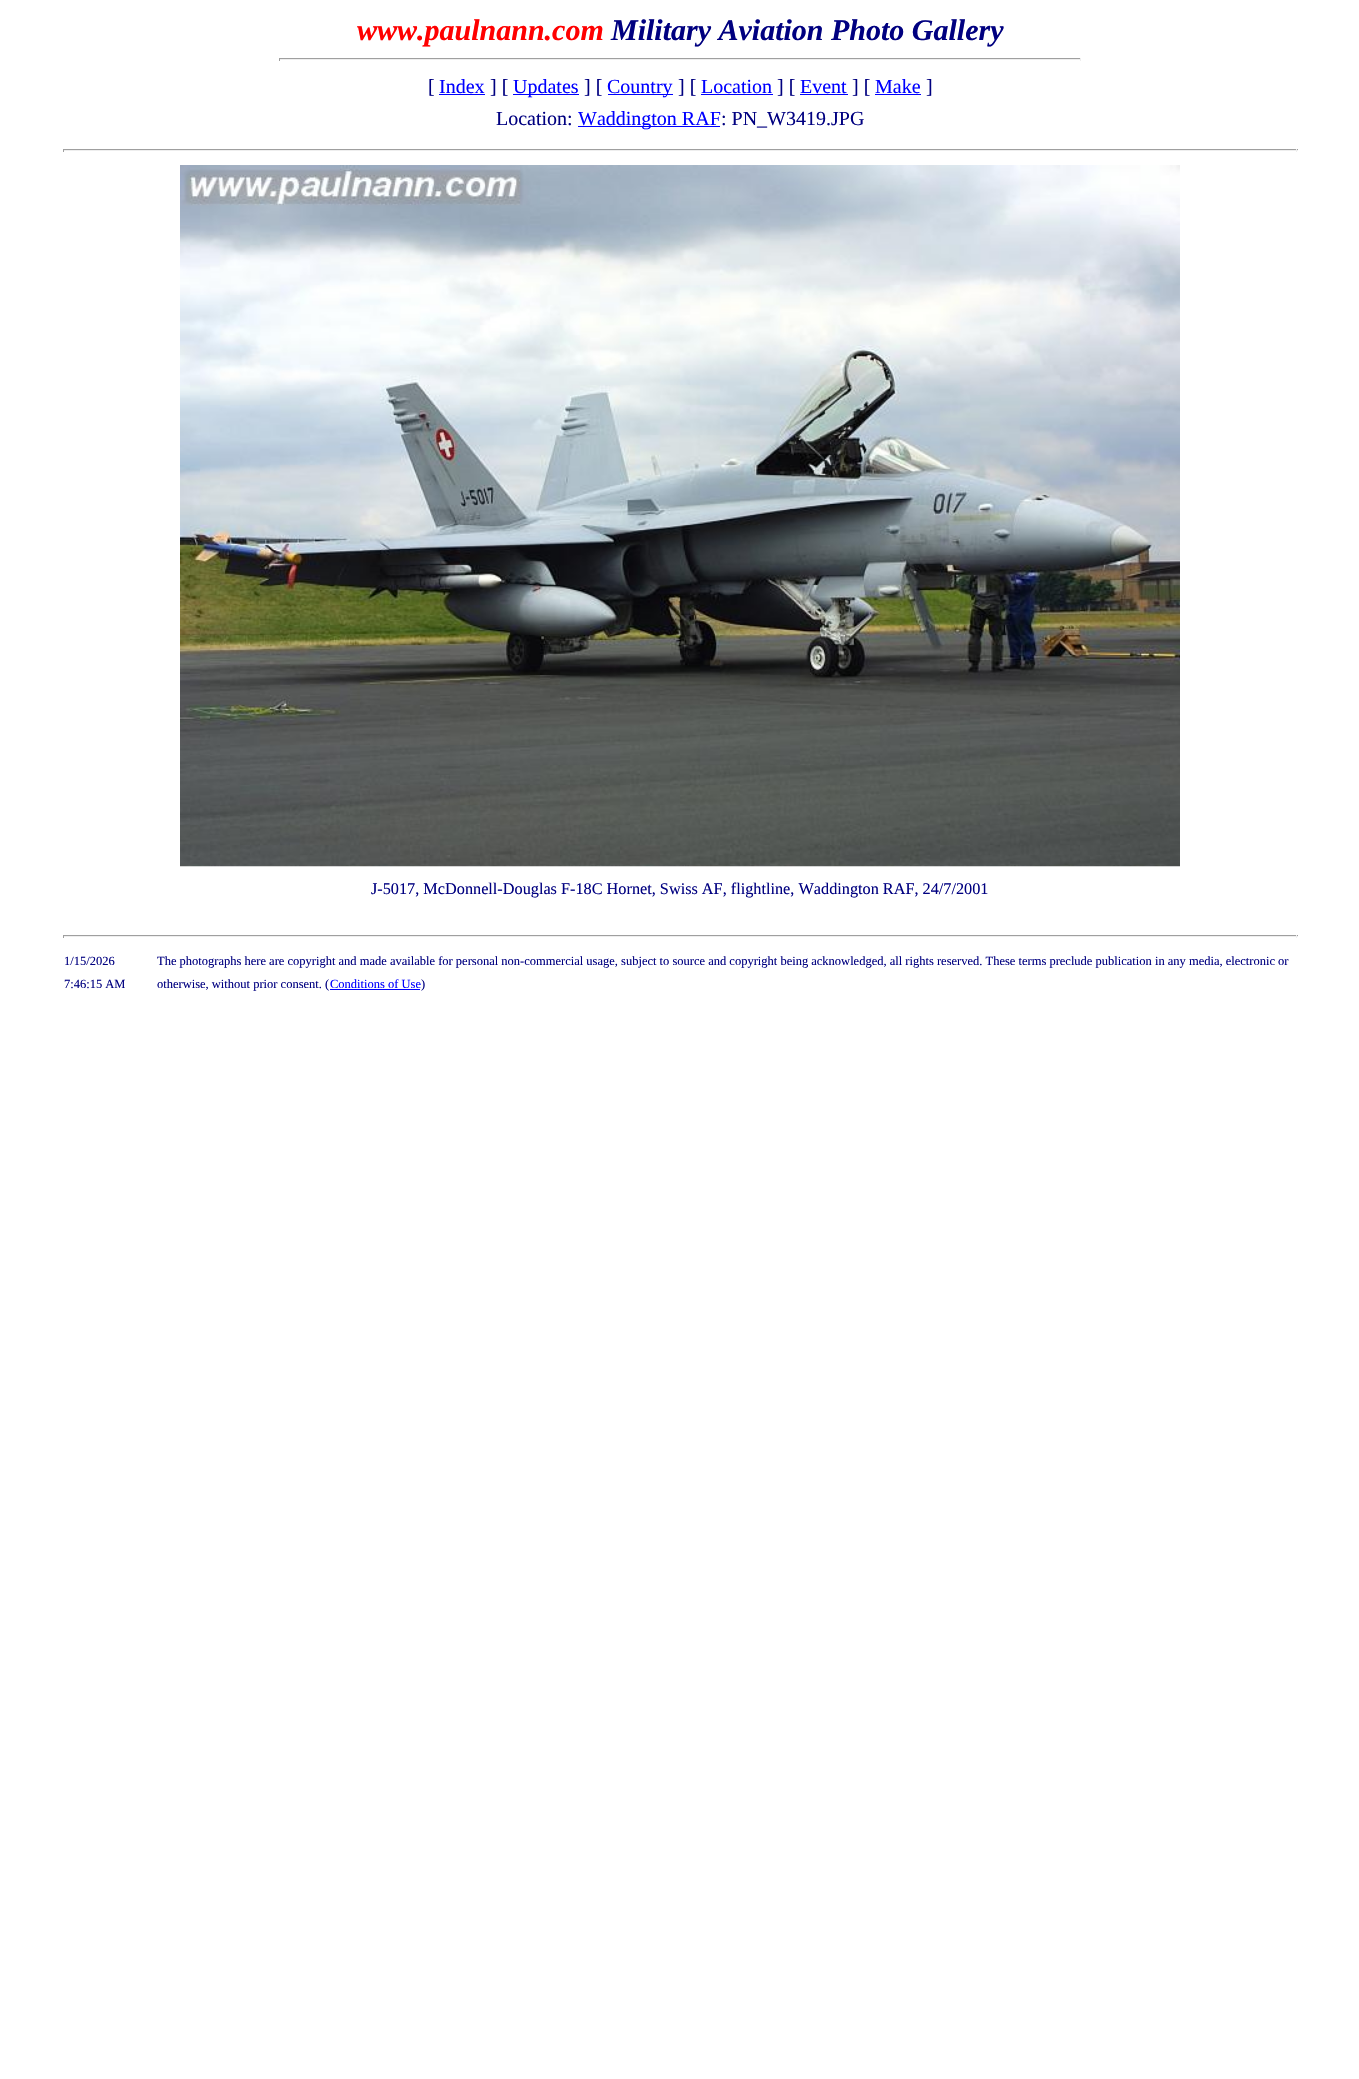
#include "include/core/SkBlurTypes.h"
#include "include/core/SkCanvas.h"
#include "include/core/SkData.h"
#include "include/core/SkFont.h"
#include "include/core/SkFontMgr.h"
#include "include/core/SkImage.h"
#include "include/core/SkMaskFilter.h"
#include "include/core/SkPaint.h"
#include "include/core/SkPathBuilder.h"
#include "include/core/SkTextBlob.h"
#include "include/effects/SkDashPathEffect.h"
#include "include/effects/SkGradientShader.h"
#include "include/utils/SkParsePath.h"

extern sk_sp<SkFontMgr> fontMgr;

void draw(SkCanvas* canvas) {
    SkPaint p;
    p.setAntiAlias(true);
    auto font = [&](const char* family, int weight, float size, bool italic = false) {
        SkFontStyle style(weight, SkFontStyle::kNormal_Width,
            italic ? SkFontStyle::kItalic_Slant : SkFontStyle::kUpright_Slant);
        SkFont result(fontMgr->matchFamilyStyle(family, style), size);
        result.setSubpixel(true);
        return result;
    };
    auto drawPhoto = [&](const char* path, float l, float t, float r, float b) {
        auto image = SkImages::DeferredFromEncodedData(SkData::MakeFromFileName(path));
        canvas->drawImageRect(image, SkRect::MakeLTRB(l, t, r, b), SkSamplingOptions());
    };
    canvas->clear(0xFFFFFFFF);
    auto font1 = font("Liberation Serif", 700, 30, true);
    p.setColor(0xFFFF0000);
    canvas->drawString("www.paulnann.com", 357, 40, font1, p);
    p.setColor(0xFF000080);
    canvas->drawString("Military Aviation Photo Gallery", 611, 40, font1, p);
    {
        const struct { float l, t, r, b; SkColor color; } items[] = {
            {279, 58, 1081, 59, 0xFF9F9F9F},
            {1080, 58, 1081, 61, 0xFFEEEEEE},
            {279, 59, 1081, 60, 0xFFEEEEEE},
            {279, 58, 280, 61, 0xFF9F9F9F},
        };
        for (auto [l, t, r, b, color] : items) {
            p.setColor(color);
            canvas->drawRect(SkRect::MakeLTRB(l, t, r, b), p);
        }
    }
    auto font2 = font("Liberation Serif", 400, 20);
    p.setColor(0xFF000080);
    canvas->drawString("[", 428, 93, font2, p);
    p.setColor(0xFF0000FF);
    canvas->drawString("Index", 439, 93, font2, p);
    canvas->drawRect(SkRect::MakeLTRB(439, 94, 485, 95), p);
    p.setColor(0xFF000080);
    canvas->drawString("] [", 490, 93, font2, p);
    p.setColor(0xFF0000FF);
    canvas->drawRect(SkRect::MakeLTRB(513, 94, 579, 95), p);
    canvas->drawString("Updates", 513, 93, font2, p);
    p.setColor(0xFF000080);
    canvas->drawString("] [", 584, 93, font2, p);
    p.setColor(0xFF0000FF);
    canvas->drawRect(SkRect::MakeLTRB(608, 94, 673, 95), p);
    canvas->drawString("Country", 607, 93, font2, p);
    p.setColor(0xFF000080);
    canvas->drawString("] [", 678, 93, font2, p);
    p.setColor(0xFF0000FF);
    canvas->drawString("Location", 701, 93, font2, p);
    canvas->drawRect(SkRect::MakeLTRB(701, 94, 773, 95), p);
    p.setColor(0xFF000080);
    canvas->drawString("] [", 777, 93, font2, p);
    p.setColor(0xFF0000FF);
    canvas->drawString("Event", 800, 93, font2, p);
    canvas->drawRect(SkRect::MakeLTRB(800, 94, 848, 95), p);
    p.setColor(0xFF000080);
    canvas->drawString("] [", 852, 93, font2, p);
    p.setColor(0xFF0000FF);
    canvas->drawString("Make", 875, 93, font2, p);
    canvas->drawRect(SkRect::MakeLTRB(875, 94, 921, 95), p);
    p.setColor(0xFF000080);
    canvas->drawString("]", 926, 93, font2, p);
    canvas->drawString("Location:", 496, 125, font2, p);
    p.setColor(0xFF0000FF);
    canvas->drawRect(SkRect::MakeLTRB(578, 126, 720, 127), p);
    canvas->drawString("Waddington RAF", 578, 125, font2, p);
    p.setColor(0xFF000080);
    canvas->drawString(": PN_W3419.JPG", 721, 125, font2, p);
    {
        const struct { float l, t, r, b; SkColor color; } items[] = {
            {63, 149, 1298, 150, 0xFF9F9F9F},
            {1296, 149, 1297, 152, 0xFFEEEEEE},
            {63, 150, 1298, 151, 0xFFEEEEEE},
            {63, 149, 64, 152, 0xFF9F9F9F},
        };
        for (auto [l, t, r, b, color] : items) {
            p.setColor(color);
            canvas->drawRect(SkRect::MakeLTRB(l, t, r, b), p);
        }
    }
    drawPhoto("media/1.png", 180, 165, 1180, 867);
    auto font3 = font("Liberation Serif", 400, 16.25f);
    p.setColor(0xFF000080);
    canvas->drawString("J-5017, McDonnell-Douglas F-18C Hornet, Swiss AF, flightline, Waddington RAF, 24/7/2001", 371, 894, font3, p);
    {
        const struct { float l, t, r, b; SkColor color; } items[] = {
            {63, 935, 1298, 936, 0xFF9F9F9F},
            {1296, 935, 1297, 938, 0xFFEEEEEE},
            {63, 936, 1298, 937, 0xFFEEEEEE},
            {63, 935, 64, 938, 0xFF9F9F9F},
        };
        for (auto [l, t, r, b, color] : items) {
            p.setColor(color);
            canvas->drawRect(SkRect::MakeLTRB(l, t, r, b), p);
        }
    }
    auto font4 = font("Liberation Serif", 400, 12.5f);
    p.setColor(0xFF000080);
    {
        const struct { const char* s; float x, y; } items[] = {
            {"1/15/2026", 64, 965},
            {"7:46:15 AM", 64, 988},
            {"The photographs here are copyright and made available for personal non-commercial usage, subject to source and copyright being acknowledged, all rights reserved. These terms preclude publication in any media, electronic or", 157, 965},
            {"otherwise, without prior consent. (", 157, 988},
        };
        for (auto [s, x, y] : items) {
            canvas->drawString(s, x, y, font4, p);
        }
    }
    p.setColor(0xFF0000FF);
    canvas->drawRect(SkRect::MakeLTRB(330, 989, 420, 990), p);
    canvas->drawString("Conditions of Use", 330, 988, font4, p);
    p.setColor(0xFF000080);
    canvas->drawString(")", 421, 988, font4, p);
}
